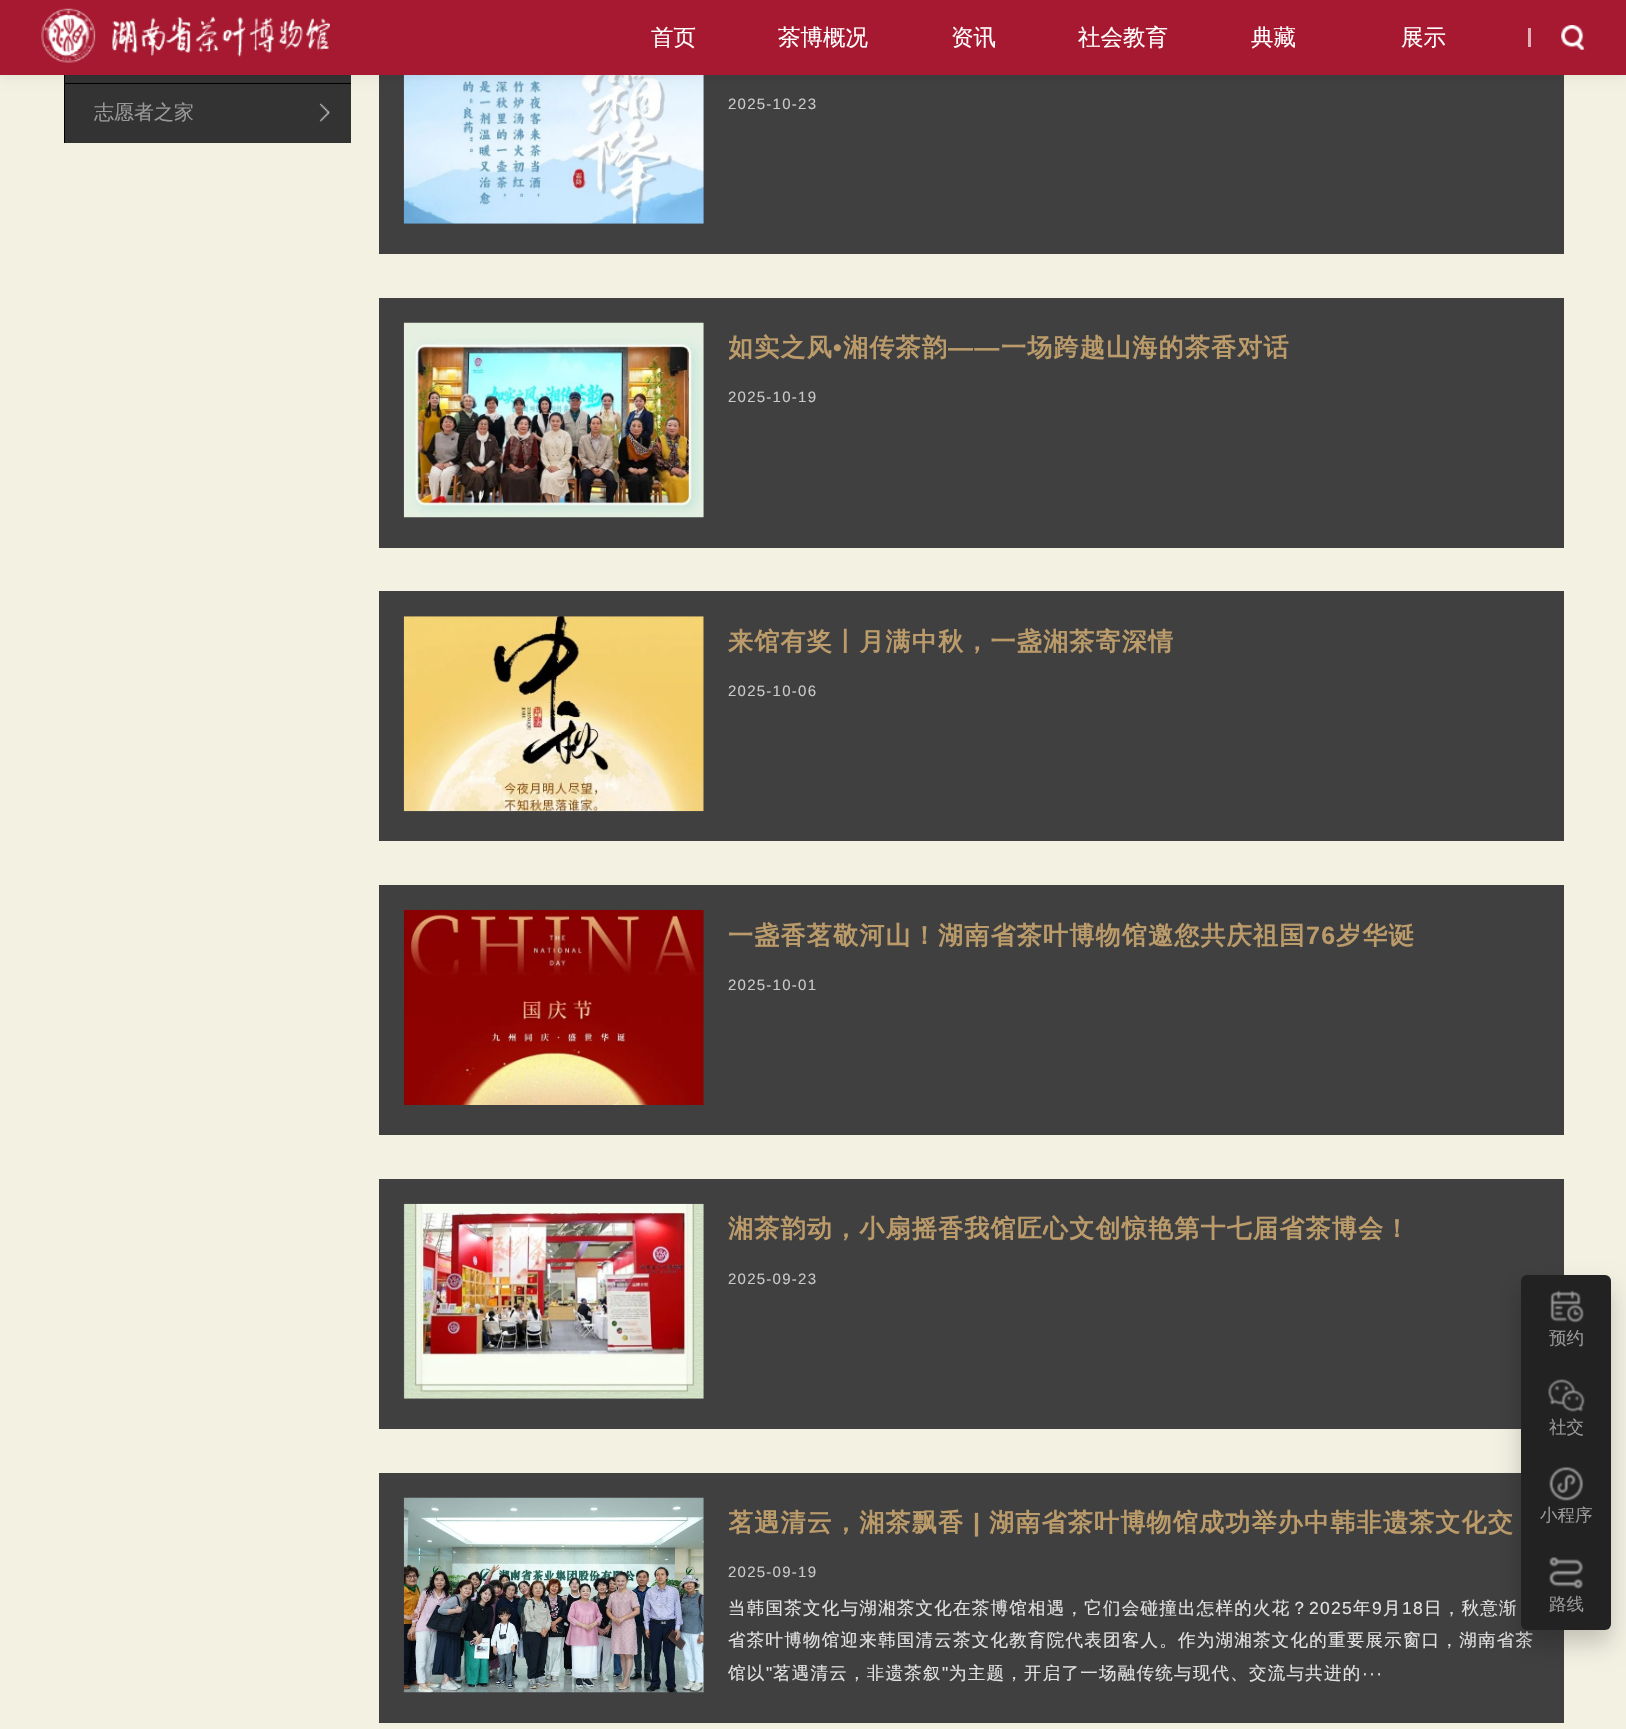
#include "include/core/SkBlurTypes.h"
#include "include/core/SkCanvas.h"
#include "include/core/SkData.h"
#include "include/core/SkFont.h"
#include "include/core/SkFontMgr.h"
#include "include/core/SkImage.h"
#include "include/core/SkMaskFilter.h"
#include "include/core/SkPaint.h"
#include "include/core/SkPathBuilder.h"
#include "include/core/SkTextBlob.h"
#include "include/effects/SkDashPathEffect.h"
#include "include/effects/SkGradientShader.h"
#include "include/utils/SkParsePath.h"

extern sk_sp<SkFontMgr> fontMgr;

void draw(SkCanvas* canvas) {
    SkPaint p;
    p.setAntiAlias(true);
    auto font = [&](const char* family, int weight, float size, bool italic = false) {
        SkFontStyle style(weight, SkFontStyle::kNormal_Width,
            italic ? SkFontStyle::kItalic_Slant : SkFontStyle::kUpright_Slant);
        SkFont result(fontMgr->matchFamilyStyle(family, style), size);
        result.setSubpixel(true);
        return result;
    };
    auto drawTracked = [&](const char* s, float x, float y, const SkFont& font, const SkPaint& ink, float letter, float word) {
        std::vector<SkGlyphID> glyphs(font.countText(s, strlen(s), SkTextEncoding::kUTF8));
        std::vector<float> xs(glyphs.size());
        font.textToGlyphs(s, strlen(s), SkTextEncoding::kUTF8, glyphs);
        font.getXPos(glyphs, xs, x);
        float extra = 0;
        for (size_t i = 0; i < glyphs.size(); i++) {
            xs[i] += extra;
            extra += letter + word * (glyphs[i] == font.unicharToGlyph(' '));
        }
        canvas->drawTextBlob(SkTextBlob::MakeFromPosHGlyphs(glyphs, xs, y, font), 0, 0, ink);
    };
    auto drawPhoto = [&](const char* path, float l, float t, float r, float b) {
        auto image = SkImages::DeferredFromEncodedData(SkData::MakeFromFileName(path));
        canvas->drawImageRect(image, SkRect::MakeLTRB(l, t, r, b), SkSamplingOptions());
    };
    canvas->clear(0xFFF3F1E2);
    {
        const struct { float l, t, r, b; SkColor color; } items[] = {
            {65, 75, 351, 83, 0xFF333333},
            {64, 75, 65, 83, 0xFF000000},
            {65, 84, 351, 143, 0xFF333333},
            {64, 83, 351, 84, 0xFF000000},
            {64, 83, 65, 143, 0xFF000000},
            {379, 75, 1564, 254, 0xFF404040},
        };
        for (auto [l, t, r, b, color] : items) {
            p.setColor(color);
            canvas->drawRect(SkRect::MakeLTRB(l, t, r, b), p);
        }
    }
    drawPhoto("media/4.png", 403, 75, 704, 224);
    p.setColor(0x1A000000);
    p.setMaskFilter(SkMaskFilter::MakeBlur(kNormal_SkBlurStyle, 6));
    canvas->drawRect(SkRect::MakeLTRB(0, 0, 1626, 75), p);
    p.setMaskFilter(nullptr);
    p.setColor(0xFFA71930);
    canvas->drawRect(SkRect::MakeLTRB(0, 0, 1626, 75), p);
    drawPhoto("media/1.png", 41, 8, 330, 63);
    auto font1 = font("WenQuanYi Zen Hei", 500, 22.5f);
    p.setColor(0xFFFFFFFF);
    {
        const struct { const char* s; float x, y; } items[] = {
            {"首页", 651, 45},
            {"茶博概况", 778, 45},
            {"资讯", 951, 45},
            {"社会教育", 1078, 45},
            {"典藏", 1251, 45},
            {"展示", 1401, 45},
        };
        for (auto [s, x, y] : items) {
            canvas->drawString(s, x, y, font1, p);
        }
    }
    p.setColor(0xFFE0AFB7);
    canvas->drawRect(SkRect::MakeLTRB(1528, 28, 1531, 47), p);
    drawPhoto("media/2.png", 1561, 25, 1585, 50);
    drawPhoto("media/3.png", 319, 103, 330, 122);
    auto font2 = font("WenQuanYi Zen Hei", 500, 20);
    p.setColor(0xFF999999);
    canvas->drawString("志愿者之家", 94, 119, font2, p);
    auto font3 = font("Liberation Sans", 400, 15);
    p.setColor(0xFFC9C9C9);
    drawTracked("2025-10-23", 728, 109, font3, p, 1.25f, 0);
    p.setColor(0xFF404040);
    canvas->drawRect(SkRect::MakeLTRB(379, 298, 1564, 548), p);
    drawPhoto("media/5.png", 403, 322, 704, 518);
    canvas->save();
    canvas->clipRect(SkRect::MakeLTRB(729, 323, 1290, 366));
    auto font4 = font("WenQuanYi Zen Hei", 700, 25);
    p.setColor(0xFFBB9B6A);
    drawTracked("如实之风", 728, 356, font4, p, 1.25f, 0);
    canvas->restore();
    auto font5 = font("Liberation Sans", 700, 25);
    drawTracked("•", 833, 356, font5, p, 1.25f, 0);
    drawTracked("湘传茶韵", 843, 356, font4, p, 1.25f, 0);
    drawTracked("——", 948, 356, font5, p, 1.25f, 0);
    drawTracked("一场跨越山海的茶香对话", 1001, 356, font4, p, 1.25f, 0);
    p.setColor(0xFFC9C9C9);
    drawTracked("2025-10-19", 728, 402, font3, p, 1.25f, 0);
    p.setColor(0xFF404040);
    canvas->drawRect(SkRect::MakeLTRB(379, 591, 1564, 841), p);
    drawPhoto("media/6.png", 403, 616, 704, 812);
    p.setColor(0xFFBB9B6A);
    drawTracked("来馆有奖丨月满中秋，一盏湘茶寄深情", 728, 650, font4, p, 1.25f, 0);
    p.setColor(0xFFC9C9C9);
    drawTracked("2025-10-06", 728, 696, font3, p, 1.25f, 0);
    p.setColor(0xFF404040);
    canvas->drawRect(SkRect::MakeLTRB(379, 885, 1564, 1135), p);
    drawPhoto("media/7.png", 403, 910, 704, 1105);
    p.setColor(0xFFBB9B6A);
    drawTracked("一盏香茗敬河山！湖南省茶叶博物馆邀您共庆祖国", 728, 944, font4, p, 1.25f, 0);
    drawTracked("76", 1306, 944, font5, p, 1.25f, 0);
    drawTracked("岁华诞", 1336, 944, font4, p, 1.25f, 0);
    p.setColor(0xFFC9C9C9);
    drawTracked("2025-10-01", 728, 990, font3, p, 1.25f, 0);
    p.setColor(0xFF404040);
    canvas->drawRect(SkRect::MakeLTRB(379, 1179, 1564, 1429), p);
    drawPhoto("media/8.png", 403, 1203, 704, 1399);
    p.setColor(0xFFBB9B6A);
    drawTracked("湘茶韵动，小扇摇香我馆匠心文创惊艳第十七届省茶博会！", 728, 1237, font4, p, 1.25f, 0);
    p.setColor(0xFFC9C9C9);
    drawTracked("2025-09-23", 728, 1284, font3, p, 1.25f, 0);
    p.setColor(0xFF404040);
    canvas->drawRect(SkRect::MakeLTRB(379, 1473, 1564, 1723), p);
    drawPhoto("media/9.png", 403, 1497, 704, 1693);
    canvas->save();
    canvas->clipRect(SkRect::MakeLTRB(729, 1498, 1539, 1541));
    p.setColor(0xFFBB9B6A);
    drawTracked("茗遇清云，湘茶飘香", 728, 1531, font4, p, 1.25f, 0);
    canvas->restore();
    drawTracked("|", 973, 1531, font5, p, 1.25f, 0);
    drawTracked("湖南省茶叶博物馆成功举办中韩非遗茶文化交", 989, 1531, font4, p, 1.25f, 0);
    p.setColor(0xFFC9C9C9);
    drawTracked("2025-09-19", 728, 1577, font3, p, 1.25f, 0);
    auto font6 = font("WenQuanYi Zen Hei", 500, 17.5f);
    p.setColor(0xFFE2E2E2);
    drawTracked("当韩国茶文化与湖湘茶文化在茶博馆相遇，它们会碰撞出怎样的火花？", 728, 1614, font6, p, 1.25f, 0);
    auto font7 = font("Liberation Sans", 400, 17.5f);
    drawTracked("2025", 1309, 1614, font7, p, 1.25f, 0);
    drawTracked("年", 1353, 1614, font6, p, 1.25f, 0);
    drawTracked("9", 1372, 1614, font7, p, 1.25f, 0);
    drawTracked("月", 1383, 1614, font6, p, 1.25f, 0);
    drawTracked("18", 1402, 1614, font7, p, 1.25f, 0);
    {
        const struct { const char* s; float x, y; } items[] = {
            {"日，秋意渐", 1424, 1614},
            {"省茶叶博物馆迎来韩国清云茶文化教育院代表团客人。作为湖湘茶文化的重要展示窗口，湖南省茶", 728, 1646},
            {"馆以", 728, 1679},
        };
        for (auto [s, x, y] : items) {
            drawTracked(s, x, y, font6, p, 1.25f, 0);
        }
    }
    drawTracked("\"", 766, 1679, font7, p, 1.25f, 0);
    drawTracked("茗遇清云，非遗茶叙", 773, 1679, font6, p, 1.25f, 0);
    drawTracked("\"", 942, 1679, font7, p, 1.25f, 0);
    drawTracked("为主题，开启了一场融传统与现代、交流与共进的", 949, 1679, font6, p, 1.25f, 0);
    drawTracked("···", 1362, 1679, font7, p, 1.25f, 0);
    p.setColor(0x33000000);
    p.setMaskFilter(SkMaskFilter::MakeBlur(kNormal_SkBlurStyle, 12.5f));
    canvas->drawRoundRect(SkRect::MakeLTRB(1521, 1288, 1611, 1643), 6, 6, p);
    p.setMaskFilter(nullptr);
    p.setColor(0xFF222222);
    canvas->drawRoundRect(SkRect::MakeLTRB(1521, 1275, 1611, 1630), 6, 6, p);
    drawPhoto("media/10.png", 1550, 1290, 1584, 1323);
    p.setColor(0xFF999999);
    canvas->drawString("预约", 1549, 1344, font6, p);
    drawPhoto("media/11.png", 1548, 1379, 1585, 1412);
    canvas->drawString("社交", 1549, 1433, font6, p);
    drawPhoto("media/12.png", 1549, 1467, 1584, 1501);
    canvas->drawString("小程序", 1540, 1521, font6, p);
    drawPhoto("media/13.png", 1549, 1557, 1584, 1589);
    canvas->drawString("路线", 1549, 1610, font6, p);
}
